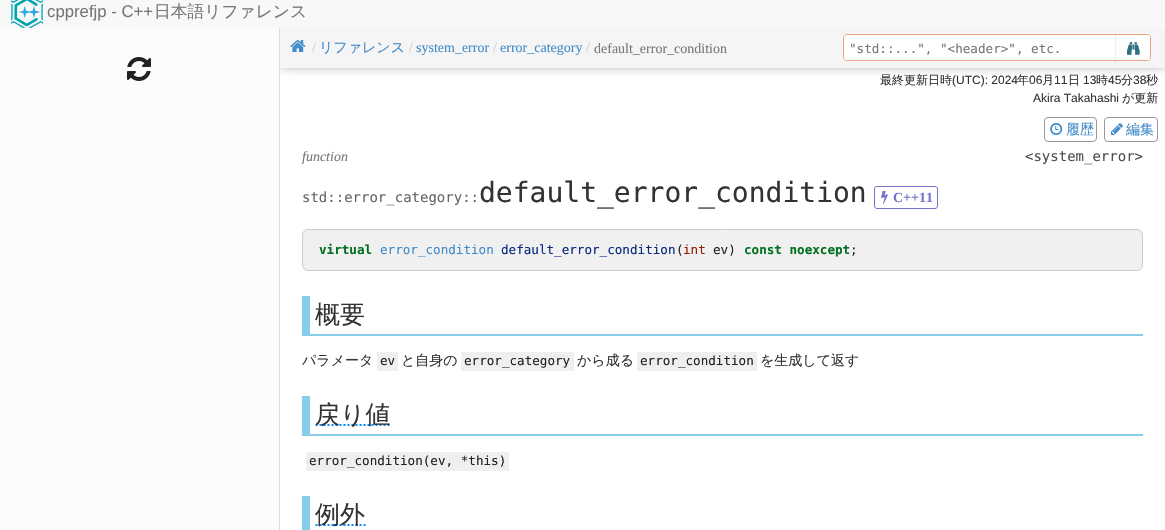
#include "include/core/SkBlurTypes.h"
#include "include/core/SkCanvas.h"
#include "include/core/SkData.h"
#include "include/core/SkFont.h"
#include "include/core/SkFontMgr.h"
#include "include/core/SkImage.h"
#include "include/core/SkMaskFilter.h"
#include "include/core/SkPaint.h"
#include "include/core/SkPathBuilder.h"
#include "include/core/SkTextBlob.h"
#include "include/effects/SkDashPathEffect.h"
#include "include/effects/SkGradientShader.h"
#include "include/utils/SkParsePath.h"

extern sk_sp<SkFontMgr> fontMgr;

void draw(SkCanvas* canvas) {
    SkPaint p;
    p.setAntiAlias(true);
    auto font = [&](const char* family, int weight, float size, bool italic = false) {
        SkFontStyle style(weight, SkFontStyle::kNormal_Width,
            italic ? SkFontStyle::kItalic_Slant : SkFontStyle::kUpright_Slant);
        SkFont result(fontMgr->matchFamilyStyle(family, style), size);
        result.setSubpixel(true);
        return result;
    };
    auto drawPhoto = [&](const char* path, float l, float t, float r, float b) {
        auto image = SkImages::DeferredFromEncodedData(SkData::MakeFromFileName(path));
        canvas->drawImageRect(image, SkRect::MakeLTRB(l, t, r, b), SkSamplingOptions());
    };
    canvas->clear(0xFFFFFFFF);
    p.setColor(0x99141414);
    p.setMaskFilter(SkMaskFilter::MakeBlur(kNormal_SkBlurStyle, 6));
    canvas->drawRect(SkRect::MakeLTRB(280, 23, 1165, 64), p);
    p.setMaskFilter(nullptr);
    p.setColor(0xFFD2DFE3);
    canvas->drawRect(SkRect::MakeLTRB(279, 27, 280, 530), p);
    p.setColor(0xFFF8F8F8);
    canvas->drawRect(SkRect::MakeLTRB(0, 0, 1165, 28), p);
    drawPhoto("media/1.png", 11, 0, 43, 28);
    auto font1 = font("Liberation Sans", 400, 16.75f);
    p.setColor(0xFF777777);
    canvas->drawString("cpprefjp - C++", 47, 17, font1, p);
    auto font2 = font("WenQuanYi Zen Hei", 500, 16.75f);
    canvas->drawString("日本語リファレンス", 154, 17, font2, p);
    p.setColor(0xFFFBFBFB);
    canvas->drawRect(SkRect::MakeLTRB(0, 28, 279, 530), p);
    drawPhoto("media/2.png", 127, 57, 151, 81);
    p.setColor(0xFFF5F5F5);
    canvas->drawRect(SkRect::MakeLTRB(280, 28, 1165, 68), p);
    drawPhoto("media/3.png", 290, 40, 306, 52);
    auto font3 = font("Liberation Serif", 400, 14);
    p.setColor(0xFFCCCCCC);
    canvas->drawString("/", 312, 52, font3, p);
    auto font4 = font("WenQuanYi Zen Hei", 500, 14);
    p.setColor(0xFF428BCA);
    canvas->drawString("リファレンス", 319, 52, font4, p);
    p.setColor(0xFFCCCCCC);
    canvas->drawString("/", 409, 52, font3, p);
    p.setColor(0xFF428BCA);
    canvas->drawString("system_error", 416, 52, font3, p);
    p.setColor(0xFFCCCCCC);
    canvas->drawString("/", 493, 52, font3, p);
    p.setColor(0xFF428BCA);
    canvas->drawString("error_category", 500, 52, font3, p);
    p.setColor(0xFFCCCCCC);
    canvas->drawString("/", 586, 52, font3, p);
    p.setColor(0xFF777777);
    canvas->drawString("default_error_condition", 594, 53, font3, p);
    p.setStyle(SkPaint::kStroke_Style);
    p.setStrokeWidth(1);
    p.setColor(0xFFEBA487);
    canvas->drawRoundRect(SkRect::MakeLTRB(843.5f, 34.5f, 1150.5f, 60.5f), 3.5f, 3.5f, p);
    p.setStyle(SkPaint::kFill_Style);
    p.setColor(0xFFFFFFFF);
    canvas->drawRoundRect(SkRect::MakeLTRB(844, 35, 1150, 60), 3, 3, p);
    auto font5 = font("DejaVu Sans Mono", 400, 12.6f);
    p.setColor(0xFF777777);
    canvas->drawString("\"std::...\", \"<header>\", etc.", 849, 53, font5, p);
    p.setColor(0xFFFFFFFF);
    canvas->drawPath(SkPathBuilder().moveTo(1115, 35).lineTo(1147, 35).cubicTo(1148.5f, 35, 1150, 36.5f, 1150, 38).lineTo(1150, 57).cubicTo(1150, 58.5f, 1148.5f, 60, 1147, 60).lineTo(1115, 60).close().detach(), p);
    p.setStyle(SkPaint::kStroke_Style);
    p.setColor(0xFFDDDDDD);
    p.setPathEffect(SkDashPathEffect::Make({{1, 1}}, 0));
    canvas->drawPath(SkPathBuilder().moveTo(1115.5f, 35).lineTo(1115.5f, 62).detach(), p);
    p.setPathEffect(nullptr);
    drawPhoto("media/4.png", 1127, 42, 1140, 55);
    auto font6 = font("WenQuanYi Zen Hei", 500, 12);
    p.setStyle(SkPaint::kFill_Style);
    p.setColor(0xFF333333);
    canvas->drawString("最終更新日時", 880, 84, font6, p);
    auto font7 = font("Liberation Sans", 400, 12);
    canvas->drawString("(UTC): 2024", 952, 84, font7, p);
    canvas->drawString("年", 1017, 84, font6, p);
    canvas->drawString("06", 1029, 84, font7, p);
    canvas->drawString("月", 1042, 84, font6, p);
    canvas->drawString("11", 1054, 84, font7, p);
    canvas->drawString("日", 1068, 84, font6, p);
    canvas->drawString("13", 1083, 84, font7, p);
    canvas->drawString("時", 1096, 84, font6, p);
    canvas->drawString("45", 1108, 84, font7, p);
    canvas->drawString("分", 1121, 84, font6, p);
    canvas->drawString("38", 1133, 84, font7, p);
    canvas->drawString("秒", 1146, 84, font6, p);
    canvas->drawString("Akira Takahashi", 1033, 102, font7, p);
    canvas->drawString("が更新", 1122, 102, font6, p);
    p.setStyle(SkPaint::kStroke_Style);
    p.setColor(0xFF999999);
    canvas->drawRoundRect(SkRect::MakeLTRB(1044.5f, 117.5f, 1096.5f, 141.5f), 3.5f, 3.5f, p);
    drawPhoto("media/5.png", 1050, 123, 1063, 135);
    p.setStyle(SkPaint::kFill_Style);
    p.setColor(0xFF428BCA);
    canvas->drawString("履歴", 1066, 134, font4, p);
    p.setStyle(SkPaint::kStroke_Style);
    p.setColor(0xFF999999);
    canvas->drawRoundRect(SkRect::MakeLTRB(1104.5f, 117.5f, 1157.5f, 141.5f), 3.5f, 3.5f, p);
    drawPhoto("media/6.png", 1111, 123, 1123, 135);
    p.setStyle(SkPaint::kFill_Style);
    p.setColor(0xFF428BCA);
    canvas->drawString("編集", 1126, 134, font4, p);
    auto font8 = font("Liberation Serif", 400, 14, true);
    p.setColor(0xFF777777);
    canvas->drawString("function", 302, 161, font8, p);
    auto font9 = font("DejaVu Sans Mono", 400, 14);
    p.setColor(0xFF4E4E4E);
    canvas->drawString("<system_error>", 1025, 161, font9, p);
    p.setColor(0xFF666666);
    canvas->drawString("std::error_category::", 302, 202, font9, p);
    auto font10 = font("DejaVu Sans Mono", 400, 28);
    p.setColor(0xFF333333);
    canvas->drawString("default_error_condition", 479, 202, font10, p);
    p.setStyle(SkPaint::kStroke_Style);
    p.setColor(0xFF7473CA);
    canvas->drawRoundRect(SkRect::MakeLTRB(874.5f, 186.5f, 937.5f, 208.5f), 2.5f, 2.5f, p);
    drawPhoto("media/7.png", 881, 191, 888, 204);
    auto font11 = font("Liberation Serif", 700, 14);
    p.setStyle(SkPaint::kFill_Style);
    canvas->drawString("C++11", 893, 202, font11, p);
    p.setColor(0xFFF0F0F0);
    canvas->drawRoundRect(SkRect::MakeLTRB(302.5f, 229.5f, 1142.5f, 270.5f), 5.5f, 5.5f, p);
    p.setStyle(SkPaint::kStroke_Style);
    p.setColor(0xFFCCCCCC);
    canvas->drawRoundRect(SkRect::MakeLTRB(302.5f, 229.5f, 1142.5f, 270.5f), 5.5f, 5.5f, p);
    auto font12 = font("DejaVu Sans Mono", 700, 12.6f);
    p.setStyle(SkPaint::kFill_Style);
    p.setColor(0xFF007020);
    canvas->drawString("virtual", 319, 254, font12, p);
    p.setColor(0xFF428BCA);
    canvas->drawString("error_condition", 380, 254, font5, p);
    p.setColor(0xFF06287E);
    canvas->drawString("default_error_condition", 501, 254, font5, p);
    p.setColor(0xFF232323);
    canvas->drawString("(", 676, 254, font5, p);
    p.setColor(0xFF902000);
    canvas->drawString("int", 683, 254, font5, p);
    p.setColor(0xFF232323);
    canvas->drawString("ev)", 713, 254, font5, p);
    p.setColor(0xFF007020);
    canvas->drawString("const noexcept", 744, 254, font12, p);
    p.setColor(0xFF232323);
    canvas->drawString(";", 850, 254, font5, p);
    p.setColor(0xFF87CEEB);
    canvas->drawRect(SkRect::MakeLTRB(302, 334, 1143, 336), p);
    canvas->drawRect(SkRect::MakeLTRB(302, 296, 310, 336), p);
    auto font13 = font("WenQuanYi Zen Hei", 500, 25);
    p.setColor(0xFF333333);
    canvas->drawString("概要", 315, 323, font13, p);
    canvas->drawString("パラメータ", 302, 365, font4, p);
    p.setColor(0xFFEFEFEF);
    canvas->drawRect(SkRect::MakeLTRB(377, 352, 398, 371), p);
    p.setColor(0xFF232323);
    canvas->drawString("ev", 380, 365, font5, p);
    p.setColor(0xFF333333);
    canvas->drawString("と自身の", 401, 365, font4, p);
    p.setColor(0xFFEFEFEF);
    canvas->drawRect(SkRect::MakeLTRB(461, 352, 574, 371), p);
    p.setColor(0xFF232323);
    canvas->drawString("error_category", 464, 365, font5, p);
    p.setColor(0xFF333333);
    canvas->drawString("から成る", 577, 365, font4, p);
    p.setColor(0xFFEFEFEF);
    canvas->drawRect(SkRect::MakeLTRB(637, 352, 757, 371), p);
    p.setColor(0xFF232323);
    canvas->drawString("error_condition", 640, 365, font5, p);
    p.setColor(0xFF333333);
    canvas->drawString("を生成して返す", 760, 365, font4, p);
    p.setColor(0xFF87CEEB);
    canvas->drawRect(SkRect::MakeLTRB(302, 434, 1143, 436), p);
    canvas->drawRect(SkRect::MakeLTRB(302, 396, 310, 436), p);
    p.setStyle(SkPaint::kStroke_Style);
    p.setStrokeWidth(2);
    p.setColor(0xFF0088FF);
    p.setPathEffect(SkDashPathEffect::Make({{2, 2}}, 0));
    canvas->drawPath(SkPathBuilder().moveTo(315.5f, 425).lineTo(391.5f, 425).detach(), p);
    p.setPathEffect(nullptr);
    p.setStyle(SkPaint::kFill_Style);
    p.setColor(0xFF333333);
    canvas->drawString("戻り値", 315, 423, font13, p);
    p.setColor(0xFFEFEFEF);
    canvas->drawRect(SkRect::MakeLTRB(306, 452, 509, 471), p);
    p.setColor(0xFF232323);
    canvas->drawString("error_condition(ev, *this)", 309, 465, font5, p);
    p.setColor(0xFF87CEEB);
    canvas->drawRect(SkRect::MakeLTRB(302, 496, 310, 530), p);
    p.setStyle(SkPaint::kStroke_Style);
    p.setColor(0xFF0088FF);
    p.setPathEffect(SkDashPathEffect::Make({{2, 2}}, 0));
    canvas->drawPath(SkPathBuilder().moveTo(315.5f, 525).lineTo(366, 525).detach(), p);
    p.setPathEffect(nullptr);
    p.setStyle(SkPaint::kFill_Style);
    p.setColor(0xFF333333);
    canvas->drawString("例外", 315, 523, font13, p);
}
